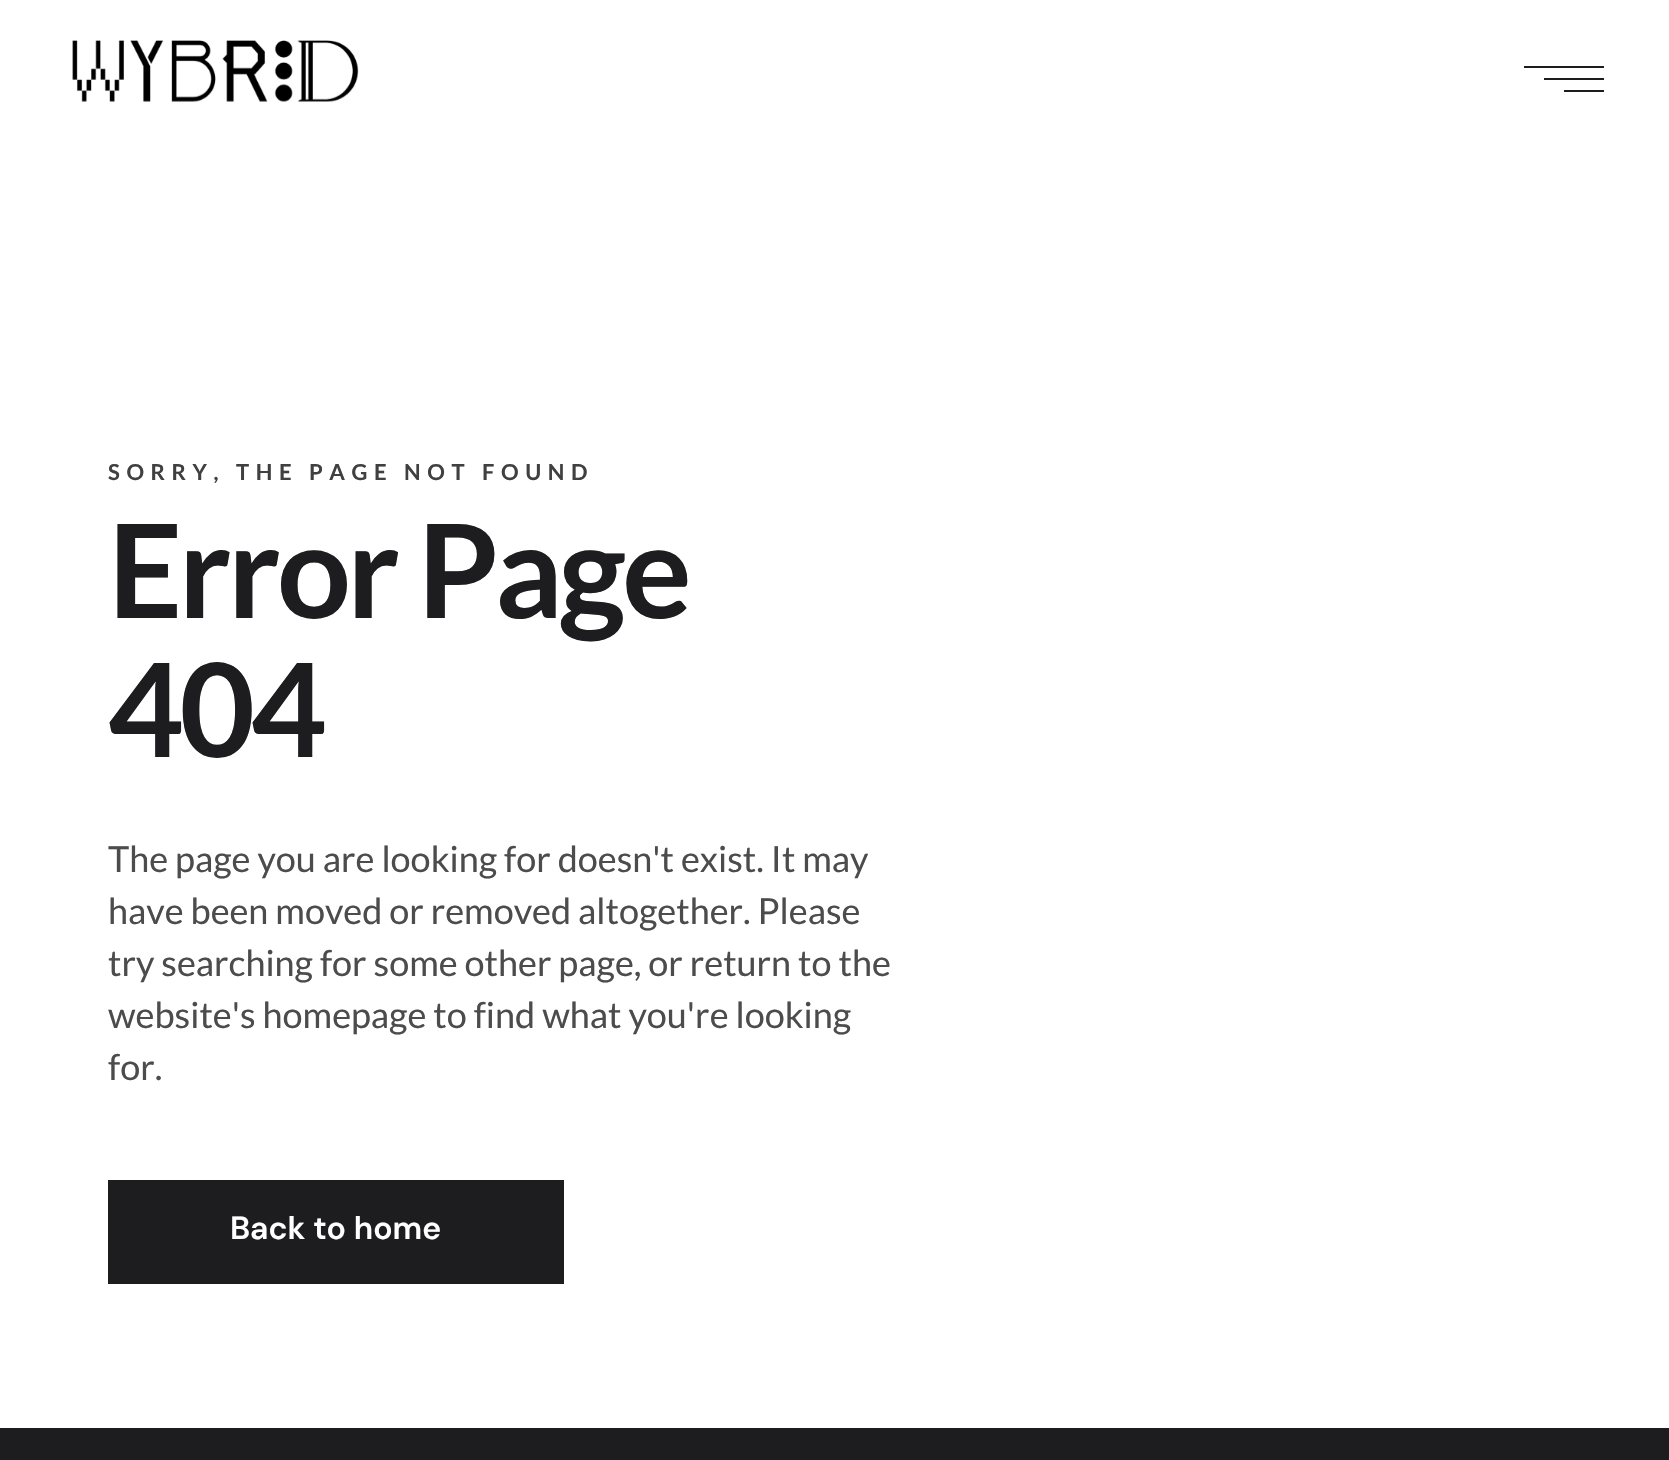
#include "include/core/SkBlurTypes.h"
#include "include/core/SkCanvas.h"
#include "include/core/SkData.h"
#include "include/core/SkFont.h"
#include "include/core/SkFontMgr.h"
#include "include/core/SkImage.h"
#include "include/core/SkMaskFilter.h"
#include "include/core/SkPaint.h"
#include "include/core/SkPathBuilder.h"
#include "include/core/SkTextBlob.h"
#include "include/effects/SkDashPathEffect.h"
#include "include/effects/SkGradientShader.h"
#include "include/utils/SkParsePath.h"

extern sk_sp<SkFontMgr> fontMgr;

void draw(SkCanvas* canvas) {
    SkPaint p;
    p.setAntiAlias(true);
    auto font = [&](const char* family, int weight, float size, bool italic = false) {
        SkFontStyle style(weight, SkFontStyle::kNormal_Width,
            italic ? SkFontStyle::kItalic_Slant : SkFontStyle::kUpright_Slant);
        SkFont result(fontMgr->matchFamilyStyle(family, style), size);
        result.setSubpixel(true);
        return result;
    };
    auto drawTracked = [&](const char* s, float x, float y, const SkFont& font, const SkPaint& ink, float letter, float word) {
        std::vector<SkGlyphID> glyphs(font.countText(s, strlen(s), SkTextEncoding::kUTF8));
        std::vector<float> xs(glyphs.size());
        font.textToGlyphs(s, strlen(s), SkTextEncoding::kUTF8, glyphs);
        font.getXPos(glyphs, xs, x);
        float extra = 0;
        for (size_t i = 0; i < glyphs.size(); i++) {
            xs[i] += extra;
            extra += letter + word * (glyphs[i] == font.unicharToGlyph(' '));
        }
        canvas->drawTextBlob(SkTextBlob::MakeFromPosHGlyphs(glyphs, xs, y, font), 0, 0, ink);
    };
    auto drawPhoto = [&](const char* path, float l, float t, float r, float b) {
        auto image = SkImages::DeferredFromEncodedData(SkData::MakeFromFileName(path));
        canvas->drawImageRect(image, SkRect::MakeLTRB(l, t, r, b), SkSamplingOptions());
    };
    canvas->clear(0xFFFFFFFF);
    drawPhoto("media/1.png", 72, 40, 359, 102);
    {
        const struct { float l, t, r, b; SkColor color; } items[] = {
            {1524, 66, 1604, 68, 0xFF1D1D1F},
            {1544, 78, 1604, 80, 0xFF1D1D1F},
            {1564, 90, 1604, 92, 0xFF1D1D1F},
        };
        for (auto [l, t, r, b, color] : items) {
            p.setColor(color);
            canvas->drawRect(SkRect::MakeLTRB(l, t, r, b), p);
        }
    }
    auto font1 = font("Lato", 700, 22);
    p.setColor(0xFF404040);
    drawTracked("SORRY, THE PAGE NOT FOUND", 108, 480, font1, p, 6.6f, 0);
    auto font2 = font("Lato", 700, 130);
    p.setColor(0xFF1D1D1F);
    drawTracked("Error Page", 108, 618, font2, p, -3.9f, 0);
    drawTracked("404", 108, 757, font2, p, -3.9f, 0);
    auto font3 = font("Lato", 400, 36);
    p.setColor(0xFF4C4C4C);
    {
        const struct { const char* s; float x, y; } items[] = {
            {"The page you are looking for doesn't exist. It may", 108, 872},
            {"have been moved or removed altogether. Please", 108, 924},
            {"try searching for some other page, or return to the", 108, 976},
            {"website's homepage to find what you're looking", 108, 1028},
            {"for.", 108, 1080},
        };
        for (auto [s, x, y] : items) {
            canvas->drawString(s, x, y, font3, p);
        }
    }
    p.setColor(0xFF1D1D1F);
    canvas->drawRect(SkRect::MakeLTRB(108, 1180, 564, 1284), p);
    auto font4 = font("DM Sans", 600, 32);
    p.setColor(0xFFFFFFFF);
    canvas->drawString("Back to home", 230, 1239, font4, p);
    p.setColor(0xFF1D1D1F);
    canvas->drawRect(SkRect::MakeLTRB(0, 1428, 1669, 1460), p);
}
